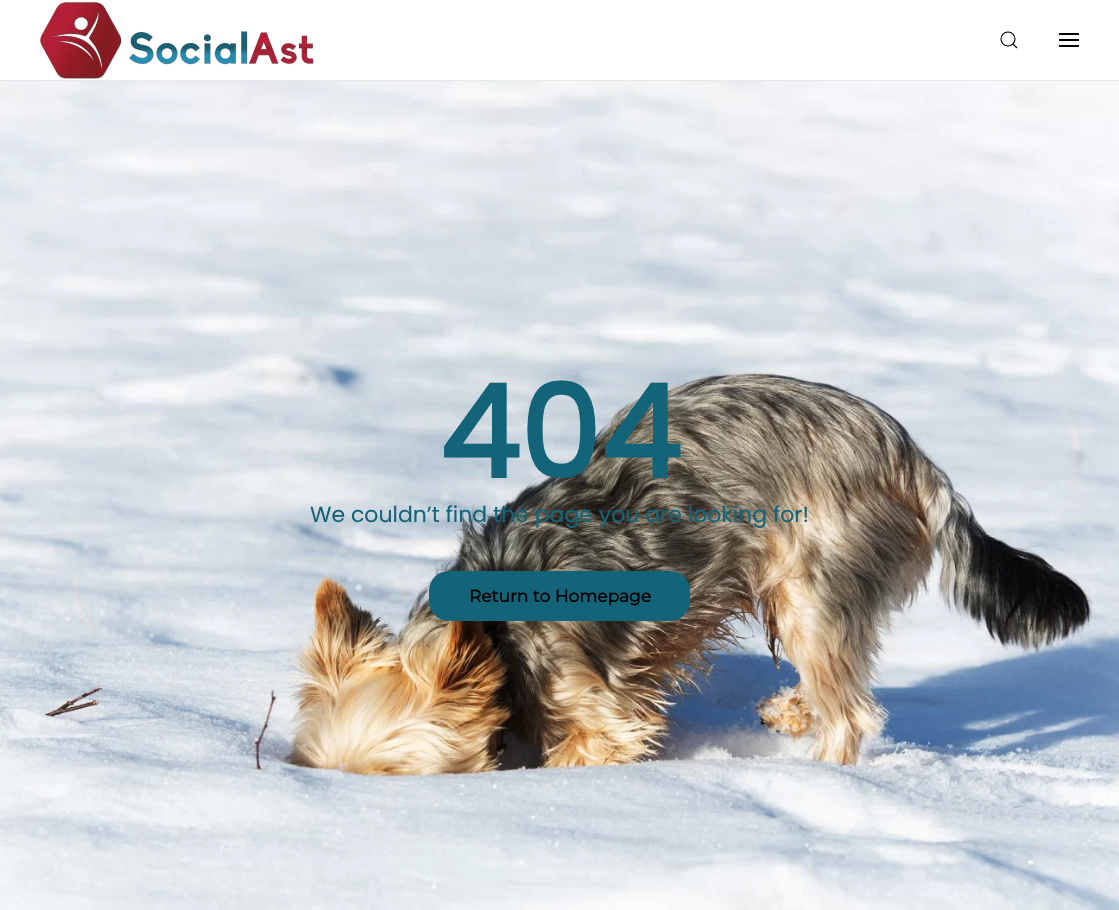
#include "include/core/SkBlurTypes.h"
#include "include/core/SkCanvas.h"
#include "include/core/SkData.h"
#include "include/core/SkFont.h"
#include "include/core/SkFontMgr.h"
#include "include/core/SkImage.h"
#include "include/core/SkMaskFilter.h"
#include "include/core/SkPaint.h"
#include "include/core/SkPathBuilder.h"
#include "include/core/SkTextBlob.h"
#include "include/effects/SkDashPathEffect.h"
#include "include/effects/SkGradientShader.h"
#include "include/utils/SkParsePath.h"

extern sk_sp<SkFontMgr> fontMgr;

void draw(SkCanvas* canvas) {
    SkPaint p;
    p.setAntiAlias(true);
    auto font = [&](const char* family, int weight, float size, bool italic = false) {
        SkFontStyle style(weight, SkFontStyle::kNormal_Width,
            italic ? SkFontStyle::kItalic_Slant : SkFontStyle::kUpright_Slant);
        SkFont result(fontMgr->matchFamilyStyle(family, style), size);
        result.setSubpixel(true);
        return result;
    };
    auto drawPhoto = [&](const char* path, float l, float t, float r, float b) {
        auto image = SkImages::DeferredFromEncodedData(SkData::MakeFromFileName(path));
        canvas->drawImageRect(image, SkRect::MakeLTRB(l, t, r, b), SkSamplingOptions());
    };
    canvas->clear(0xFFFFFFFF);
    p.setColor(0xFFE8E8E8);
    canvas->drawRect(SkRect::MakeLTRB(0, 80, 1119, 81), p);
    drawPhoto("media/1.png", 40, 2, 314, 79);
    p.setStyle(SkPaint::kStroke_Style);
    p.setStrokeWidth(1.1f);
    p.setColor(0xFF000000);
    canvas->drawCircle(1008, 39, 7, p);
    canvas->drawPath(SkPathBuilder().moveTo(1013, 44).lineTo(1017, 48).close().detach(), p);
    p.setStyle(SkPaint::kFill_Style);
    {
        const struct { float l, t, r, b; SkColor color; } items[] = {
            {1059, 33, 1079, 35, 0xFF000000},
            {1059, 39, 1079, 41, 0xFF000000},
            {1059, 45, 1079, 47, 0xFF000000},
        };
        for (auto [l, t, r, b, color] : items) {
            p.setColor(color);
            canvas->drawRect(SkRect::MakeLTRB(l, t, r, b), p);
        }
    }
    drawPhoto("media/2.png", 0, 81, 1119, 910);
    auto font1 = font("Poppins", 700, 128);
    p.setColor(0xFF146479);
    canvas->drawString("404", 439, 478, font1, p);
    auto font2 = font("Poppins", 400, 22);
    canvas->drawString("We couldn’t find the page you are looking for!", 310, 522, font2, p);
    canvas->drawRoundRect(SkRect::MakeLTRB(429, 571, 690, 621), 20, 20, p);
    auto font3 = font("Montserrat", 700, 17);
    p.setColor(0xFF000000);
    canvas->drawString("Return to Homepage", 469, 602, font3, p);
}
